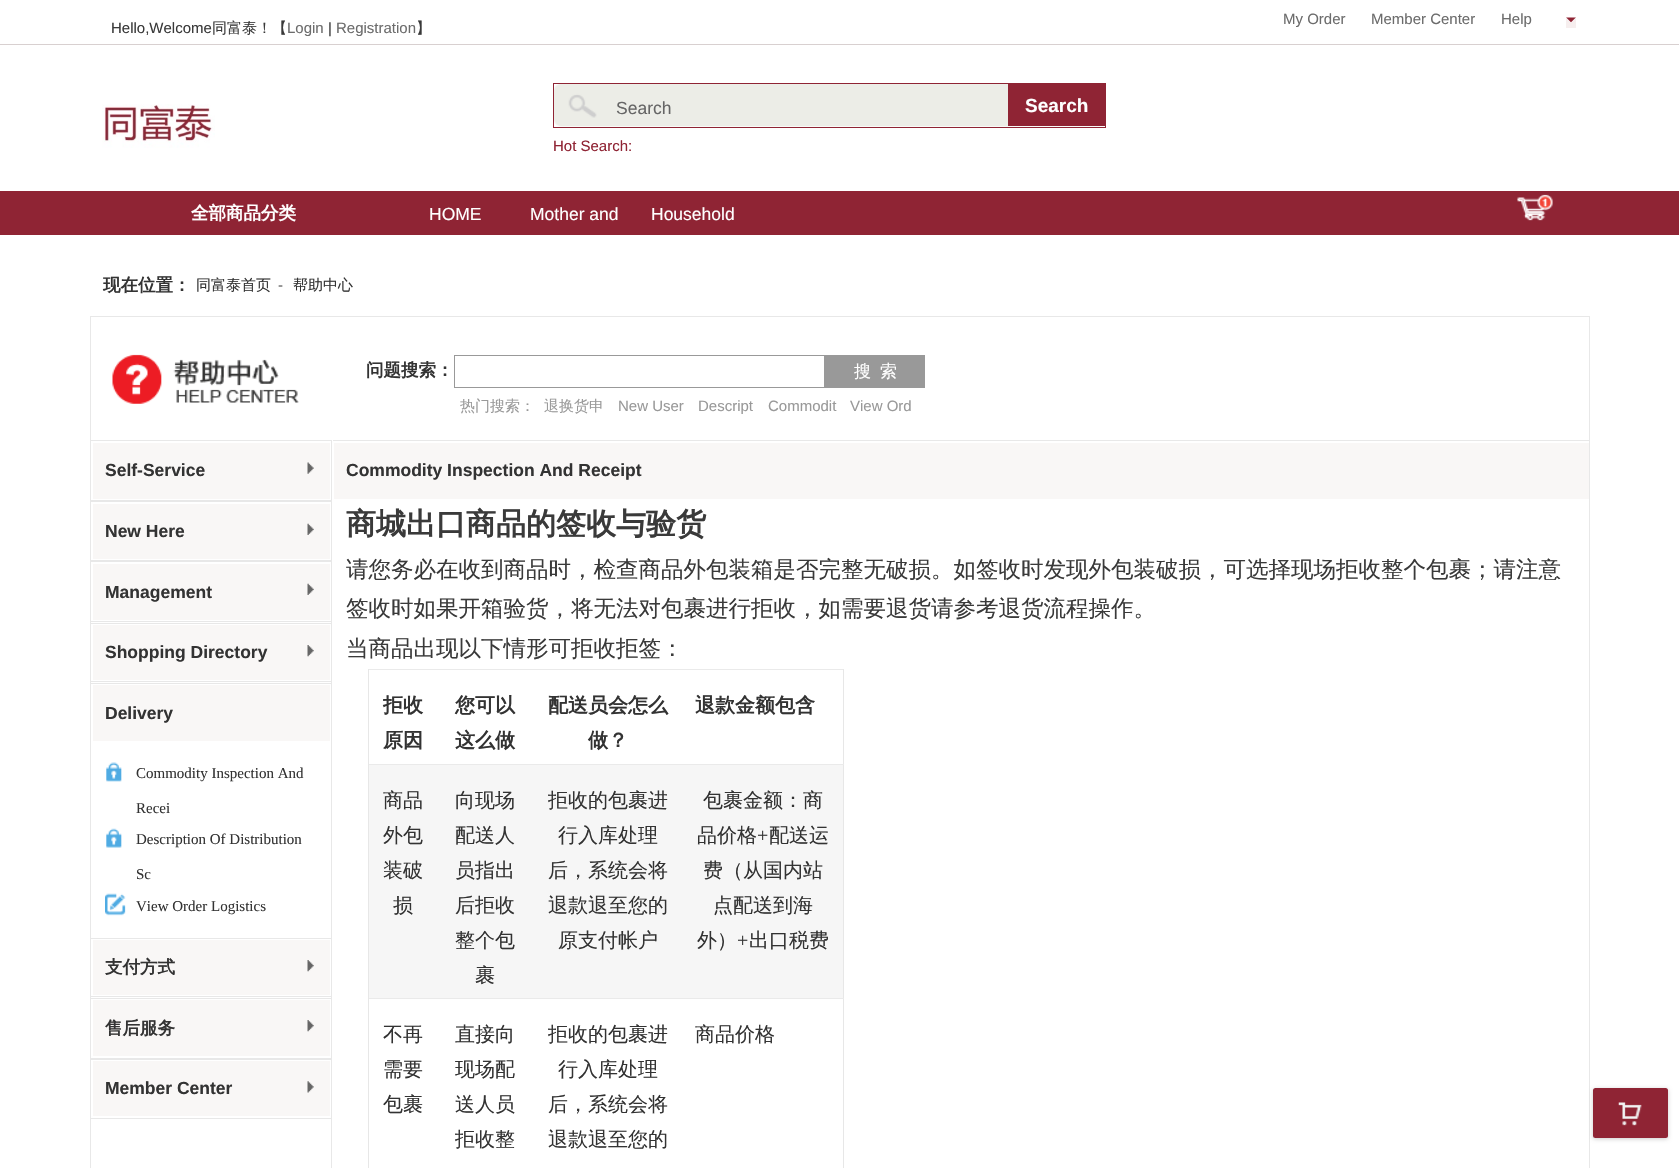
#include "include/core/SkBlurTypes.h"
#include "include/core/SkCanvas.h"
#include "include/core/SkData.h"
#include "include/core/SkFont.h"
#include "include/core/SkFontMgr.h"
#include "include/core/SkImage.h"
#include "include/core/SkMaskFilter.h"
#include "include/core/SkPaint.h"
#include "include/core/SkPathBuilder.h"
#include "include/core/SkTextBlob.h"
#include "include/effects/SkDashPathEffect.h"
#include "include/effects/SkGradientShader.h"
#include "include/utils/SkParsePath.h"

extern sk_sp<SkFontMgr> fontMgr;

void draw(SkCanvas* canvas) {
    SkPaint p;
    p.setAntiAlias(true);
    auto font = [&](const char* family, int weight, float size, bool italic = false) {
        SkFontStyle style(weight, SkFontStyle::kNormal_Width,
            italic ? SkFontStyle::kItalic_Slant : SkFontStyle::kUpright_Slant);
        SkFont result(fontMgr->matchFamilyStyle(family, style), size);
        result.setSubpixel(true);
        return result;
    };
    auto drawPhoto = [&](const char* path, float l, float t, float r, float b) {
        auto image = SkImages::DeferredFromEncodedData(SkData::MakeFromFileName(path));
        canvas->drawImageRect(image, SkRect::MakeLTRB(l, t, r, b), SkSamplingOptions());
    };
    canvas->clear(0xFFFFFFFF);
    p.setColor(0xFFD8D0D0);
    canvas->drawRect(SkRect::MakeLTRB(0, 44, 1679, 45), p);
    auto font1 = font("Liberation Sans", 400, 15);
    p.setColor(0xFF3A3A3A);
    canvas->drawString("Hello,Welcome", 111, 33, font1, p);
    auto font2 = font("WenQuanYi Zen Hei", 500, 15);
    canvas->drawString("同富泰！【", 212, 33, font2, p);
    p.setColor(0xFF6C6C6C);
    canvas->drawString("Login", 287, 33, font1, p);
    p.setColor(0xFF3A3A3A);
    canvas->drawString("|", 328, 33, font1, p);
    p.setColor(0xFF6C6C6C);
    canvas->drawString("Registration", 336, 33, font1, p);
    p.setColor(0xFF3A3A3A);
    canvas->drawString("】", 416, 33, font2, p);
    p.setColor(0xFF6C6C6C);
    {
        const struct { const char* s; float x, y; } items[] = {
            {"My Order", 1283, 24},
            {"Member Center", 1371, 24},
            {"Help", 1501, 24},
        };
        for (auto [s, x, y] : items) {
            canvas->drawString(s, x, y, font1, p);
        }
    }
    p.setColor(0xFF8F2434);
    canvas->drawPath(SkPathBuilder().moveTo(1566, 17.5f).lineTo(1576, 17.5f).lineTo(1571, 22.5f).close().detach(), p);
    p.setColor(0xFFF6EEEE);
    canvas->drawPath(SkPathBuilder().moveTo(1576, 17.5f).lineTo(1576, 27.5f).lineTo(1571, 22.5f).close().detach(), p);
    canvas->drawRect(SkRect::MakeLTRB(1566, 23, 1576, 28), p);
    canvas->drawPath(SkPathBuilder().moveTo(1566, 27.5f).lineTo(1566, 17.5f).lineTo(1571, 22.5f).close().detach(), p);
    drawPhoto("media/1.png", 102, 104, 215, 148);
    drawPhoto("media/2.png", 554, 84, 1103, 127);
    p.setStyle(SkPaint::kStroke_Style);
    p.setStrokeWidth(1);
    p.setColor(0xFF8F2434);
    canvas->drawRect(SkRect::MakeLTRB(553.5f, 83.5f, 1105.5f, 127.5f), p);
    auto font3 = font("Liberation Sans", 400, 17.5f);
    p.setStyle(SkPaint::kFill_Style);
    p.setColor(0xFF666666);
    canvas->drawString("Search", 616, 114, font3, p);
    p.setColor(0xFF8F2434);
    canvas->drawRect(SkRect::MakeLTRB(1008, 84, 1105, 126), p);
    auto font4 = font("Liberation Sans", 700, 19);
    p.setColor(0xFFFFFFFF);
    canvas->drawString("Search", 1025, 112, font4, p);
    p.setColor(0xFF8F2434);
    canvas->drawString("Hot Search:", 553, 151, font1, p);
    canvas->drawRect(SkRect::MakeLTRB(0, 191, 1679, 235), p);
    auto font5 = font("WenQuanYi Zen Hei", 700, 17.5f);
    p.setColor(0xFFFFFFFF);
    canvas->drawString("全部商品分类", 191, 219, font5, p);
    {
        const struct { const char* s; float x, y; } items[] = {
            {"HOME", 429, 220},
            {"Mother and", 530, 220},
            {"Household", 651, 220},
        };
        for (auto [s, x, y] : items) {
            canvas->drawString(s, x, y, font3, p);
        }
    }
    drawPhoto("media/3.png", 1517, 194, 1553, 221);
    p.setColor(0xFF333333);
    canvas->drawString("现在位置：", 103, 291, font5, p);
    canvas->drawString("同富泰首页", 196, 290, font2, p);
    p.setColor(0xFF666666);
    canvas->drawString("-", 278, 290, font1, p);
    p.setColor(0xFF333333);
    canvas->drawString("帮助中心", 293, 290, font2, p);
    {
        const struct { float l, t, r, b; SkColor color; } items[] = {
            {90, 316, 1590, 317, 0xFFE8E8E8},
            {1589, 316, 1590, 440, 0xFFE8E8E8},
            {90, 316, 91, 440, 0xFFE8E8E8},
        };
        for (auto [l, t, r, b, color] : items) {
            p.setColor(color);
            canvas->drawRect(SkRect::MakeLTRB(l, t, r, b), p);
        }
    }
    drawPhoto("media/4.png", 112, 354, 299, 404);
    p.setColor(0xFF333333);
    canvas->drawString("问题搜索：", 366, 376, font5, p);
    p.setStyle(SkPaint::kStroke_Style);
    p.setColor(0xFF999999);
    canvas->drawRect(SkRect::MakeLTRB(454.5f, 355.5f, 824.5f, 387.5f), p);
    p.setStyle(SkPaint::kFill_Style);
    canvas->drawRect(SkRect::MakeLTRB(825, 355, 925, 388), p);
    auto font6 = font("WenQuanYi Zen Hei", 500, 17);
    p.setColor(0xFFFFFFFF);
    canvas->drawString("搜", 854, 377, font6, p);
    canvas->drawString("索", 880, 377, font6, p);
    p.setColor(0xFF999999);
    canvas->drawString("热门搜索：", 460, 411, font2, p);
    canvas->drawString("退换货申", 544, 411, font2, p);
    {
        const struct { const char* s; float x, y; } items[] = {
            {"New User", 618, 411},
            {"Descript", 698, 411},
            {"Commodit", 768, 411},
            {"View Ord", 850, 411},
        };
        for (auto [s, x, y] : items) {
            canvas->drawString(s, x, y, font1, p);
        }
    }
    {
        const struct { float l, t, r, b; SkColor color; } items[] = {
            {1589, 440, 1590, 1168, 0xFFE8E8E8},
            {90, 440, 91, 1168, 0xFFE8E8E8},
            {91, 500, 331, 502, 0xFFE8E8E8},
            {91, 440, 331, 441, 0xFFE8E8E8},
            {93, 443, 330, 499, 0xFFF9F7F6},
        };
        for (auto [l, t, r, b, color] : items) {
            p.setColor(color);
            canvas->drawRect(SkRect::MakeLTRB(l, t, r, b), p);
        }
    }
    auto font7 = font("Liberation Sans", 700, 17.5f);
    p.setColor(0xFF333333);
    canvas->drawString("Self-Service", 105, 476, font7, p);
    drawPhoto("media/5.png", 307, 462, 314, 474);
    p.setColor(0xFFE8E8E8);
    canvas->drawRect(SkRect::MakeLTRB(91, 560, 331, 562), p);
    p.setColor(0xFFF9F7F6);
    canvas->drawRect(SkRect::MakeLTRB(93, 504, 330, 559), p);
    p.setColor(0xFF333333);
    canvas->drawString("New Here", 105, 537, font7, p);
    drawPhoto("media/6.png", 307, 523, 314, 535);
    p.setColor(0xFFE8E8E8);
    canvas->drawRect(SkRect::MakeLTRB(91, 621, 331, 622), p);
    p.setColor(0xFFF9F7F6);
    canvas->drawRect(SkRect::MakeLTRB(93, 564, 330, 620), p);
    p.setColor(0xFF333333);
    canvas->drawString("Management", 105, 598, font7, p);
    drawPhoto("media/7.png", 307, 583, 314, 595);
    {
        const struct { float l, t, r, b; SkColor color; } items[] = {
            {91, 681, 331, 682, 0xFFE8E8E8},
            {91, 623, 331, 624, 0xFFE8E8E8},
            {93, 625, 330, 680, 0xFFF9F7F6},
        };
        for (auto [l, t, r, b, color] : items) {
            p.setColor(color);
            canvas->drawRect(SkRect::MakeLTRB(l, t, r, b), p);
        }
    }
    p.setColor(0xFF333333);
    canvas->drawString("Shopping Directory", 105, 658, font7, p);
    drawPhoto("media/8.png", 307, 645, 314, 657);
    p.setColor(0xFFE8E8E8);
    canvas->drawRect(SkRect::MakeLTRB(91, 683, 331, 684), p);
    p.setColor(0xFFF9F7F6);
    canvas->drawRect(SkRect::MakeLTRB(93, 685, 330, 741), p);
    p.setColor(0xFF333333);
    canvas->drawString("Delivery", 105, 719, font7, p);
    drawPhoto("media/9.png", 106, 762, 122, 782);
    auto font8 = font("Liberation Serif", 400, 15);
    canvas->drawString("Commodity Inspection And", 136, 778, font8, p);
    canvas->drawString("Recei", 136, 813, font8, p);
    drawPhoto("media/10.png", 106, 828, 122, 848);
    canvas->drawString("Description Of Distribution", 136, 844, font8, p);
    canvas->drawString("Sc", 136, 879, font8, p);
    drawPhoto("media/11.png", 105, 893, 126, 916);
    canvas->drawString("View Order Logistics", 136, 911, font8, p);
    {
        const struct { float l, t, r, b; SkColor color; } items[] = {
            {91, 996, 331, 997, 0xFFE8E8E8},
            {91, 938, 331, 939, 0xFFE8E8E8},
            {93, 940, 330, 995, 0xFFF9F7F6},
        };
        for (auto [l, t, r, b, color] : items) {
            p.setColor(color);
            canvas->drawRect(SkRect::MakeLTRB(l, t, r, b), p);
        }
    }
    p.setColor(0xFF333333);
    canvas->drawString("支付方式", 105, 973, font5, p);
    drawPhoto("media/8.png", 307, 960, 314, 972);
    {
        const struct { float l, t, r, b; SkColor color; } items[] = {
            {91, 1058, 331, 1060, 0xFFE8E8E8},
            {91, 998, 331, 999, 0xFFE8E8E8},
            {93, 1000, 330, 1056, 0xFFF9F7F6},
        };
        for (auto [l, t, r, b, color] : items) {
            p.setColor(color);
            canvas->drawRect(SkRect::MakeLTRB(l, t, r, b), p);
        }
    }
    p.setColor(0xFF333333);
    canvas->drawString("售后服务", 105, 1034, font5, p);
    drawPhoto("media/8.png", 307, 1020, 314, 1032);
    p.setColor(0xFFE8E8E8);
    canvas->drawRect(SkRect::MakeLTRB(91, 1118, 331, 1119), p);
    p.setColor(0xFFF9F7F6);
    canvas->drawRect(SkRect::MakeLTRB(93, 1061, 330, 1116), p);
    p.setColor(0xFF333333);
    canvas->drawString("Member Center", 105, 1094, font7, p);
    drawPhoto("media/12.png", 307, 1081, 314, 1093);
    {
        const struct { float l, t, r, b; SkColor color; } items[] = {
            {331, 440, 332, 1168, 0xFFE8E8E8},
            {333, 440, 1589, 441, 0xFFE8E8E8},
            {334, 443, 1589, 499, 0xFFF9F7F6},
        };
        for (auto [l, t, r, b, color] : items) {
            p.setColor(color);
            canvas->drawRect(SkRect::MakeLTRB(l, t, r, b), p);
        }
    }
    p.setColor(0xFF333333);
    canvas->drawString("Commodity Inspection And Receipt", 346, 476, font7, p);
    auto font9 = font("WenQuanYi Zen Hei", 700, 30);
    p.setColor(0xFF3A3A3A);
    canvas->drawString("商城出口商品的签收与验货", 346, 534, font9, p);
    auto font10 = font("WenQuanYi Zen Hei", 500, 22.5f);
    {
        const struct { const char* s; float x, y; } items[] = {
            {"请您务必在收到商品时，检查商品外包装箱是否完整无破损。如签收时发现外包装破损，可选择现场拒收整个包裹；请注意", 346, 577},
            {"签收时如果开箱验货，将无法对包裹进行拒收，如需要退货请参考退货流程操作。", 346, 616},
            {"当商品出现以下情形可拒收拒签：", 346, 656},
        };
        for (auto [s, x, y] : items) {
            canvas->drawString(s, x, y, font10, p);
        }
    }
    {
        const struct { float l, t, r, b; SkColor color; } items[] = {
            {368, 669, 844, 670, 0xFFEAEAEA},
            {368, 764, 684, 765, 0xFFEAEAEA},
            {368, 669, 369, 765, 0xFFE7E7E7},
        };
        for (auto [l, t, r, b, color] : items) {
            p.setColor(color);
            canvas->drawRect(SkRect::MakeLTRB(l, t, r, b), p);
        }
    }
    auto font11 = font("WenQuanYi Zen Hei", 700, 20);
    p.setColor(0xFF333333);
    {
        const struct { const char* s; float x, y; } items[] = {
            {"拒收", 383, 712},
            {"原因", 383, 747},
            {"您可以", 455, 712},
            {"这么做", 455, 747},
            {"配送员会怎么", 548, 712},
            {"做？", 588, 747},
        };
        for (auto [s, x, y] : items) {
            canvas->drawString(s, x, y, font11, p);
        }
    }
    p.setColor(0xFFE7E7E7);
    canvas->drawRect(SkRect::MakeLTRB(843, 669, 844, 1168), p);
    p.setColor(0xFFEAEAEA);
    canvas->drawRect(SkRect::MakeLTRB(684, 764, 844, 765), p);
    p.setColor(0xFF333333);
    canvas->drawString("退款金额包含", 695, 712, font11, p);
    {
        const struct { float l, t, r, b; SkColor color; } items[] = {
            {369, 765, 843, 998, 0xFFF6F6F6},
            {368, 998, 844, 999, 0xFFEAEAEA},
            {368, 765, 369, 1168, 0xFFE7E7E7},
        };
        for (auto [l, t, r, b, color] : items) {
            p.setColor(color);
            canvas->drawRect(SkRect::MakeLTRB(l, t, r, b), p);
        }
    }
    auto font12 = font("WenQuanYi Zen Hei", 500, 20);
    p.setColor(0xFF333333);
    {
        const struct { const char* s; float x, y; } items[] = {
            {"商品", 383, 807},
            {"外包", 383, 842},
            {"装破", 383, 877},
            {"损", 393, 912},
            {"向现场", 455, 807},
            {"配送人", 455, 842},
            {"员指出", 455, 877},
            {"后拒收", 455, 912},
            {"整个包", 455, 947},
            {"裹", 475, 982},
            {"拒收的包裹进", 548, 807},
            {"行入库处理", 558, 842},
            {"后，系统会将", 548, 877},
            {"退款退至您的", 548, 912},
            {"原支付帐户", 558, 947},
            {"包裹金额：商", 703, 807},
            {"品价格", 697, 842},
        };
        for (auto [s, x, y] : items) {
            canvas->drawString(s, x, y, font12, p);
        }
    }
    auto font13 = font("Liberation Serif", 400, 20);
    canvas->drawString("+", 757, 842, font13, p);
    {
        const struct { const char* s; float x, y; } items[] = {
            {"配送运", 769, 842},
            {"费（从国内站", 703, 877},
            {"点配送到海", 713, 912},
            {"外）", 697, 947},
        };
        for (auto [s, x, y] : items) {
            canvas->drawString(s, x, y, font12, p);
        }
    }
    canvas->drawString("+", 737, 947, font13, p);
    {
        const struct { const char* s; float x, y; } items[] = {
            {"出口税费", 749, 947},
            {"不再", 383, 1041},
            {"需要", 383, 1076},
            {"包裹", 383, 1111},
            {"直接向", 455, 1041},
            {"现场配", 455, 1076},
            {"送人员", 455, 1111},
            {"拒收整", 455, 1146},
            {"拒收的包裹进", 548, 1041},
            {"行入库处理", 558, 1076},
            {"后，系统会将", 548, 1111},
            {"退款退至您的", 548, 1146},
            {"商品价格", 695, 1041},
        };
        for (auto [s, x, y] : items) {
            canvas->drawString(s, x, y, font12, p);
        }
    }
    p.setColor(0x33000000);
    p.setMaskFilter(SkMaskFilter::MakeBlur(kNormal_SkBlurStyle, 2));
    canvas->drawRoundRect(SkRect::MakeLTRB(1593, 1089, 1668, 1139), 2.5f, 2.5f, p);
    p.setMaskFilter(nullptr);
    p.setColor(0xFF8F2434);
    canvas->drawRoundRect(SkRect::MakeLTRB(1593, 1088, 1668, 1138), 2.5f, 2.5f, p);
    drawPhoto("media/13.png", 1618, 1102, 1642, 1126);
}
